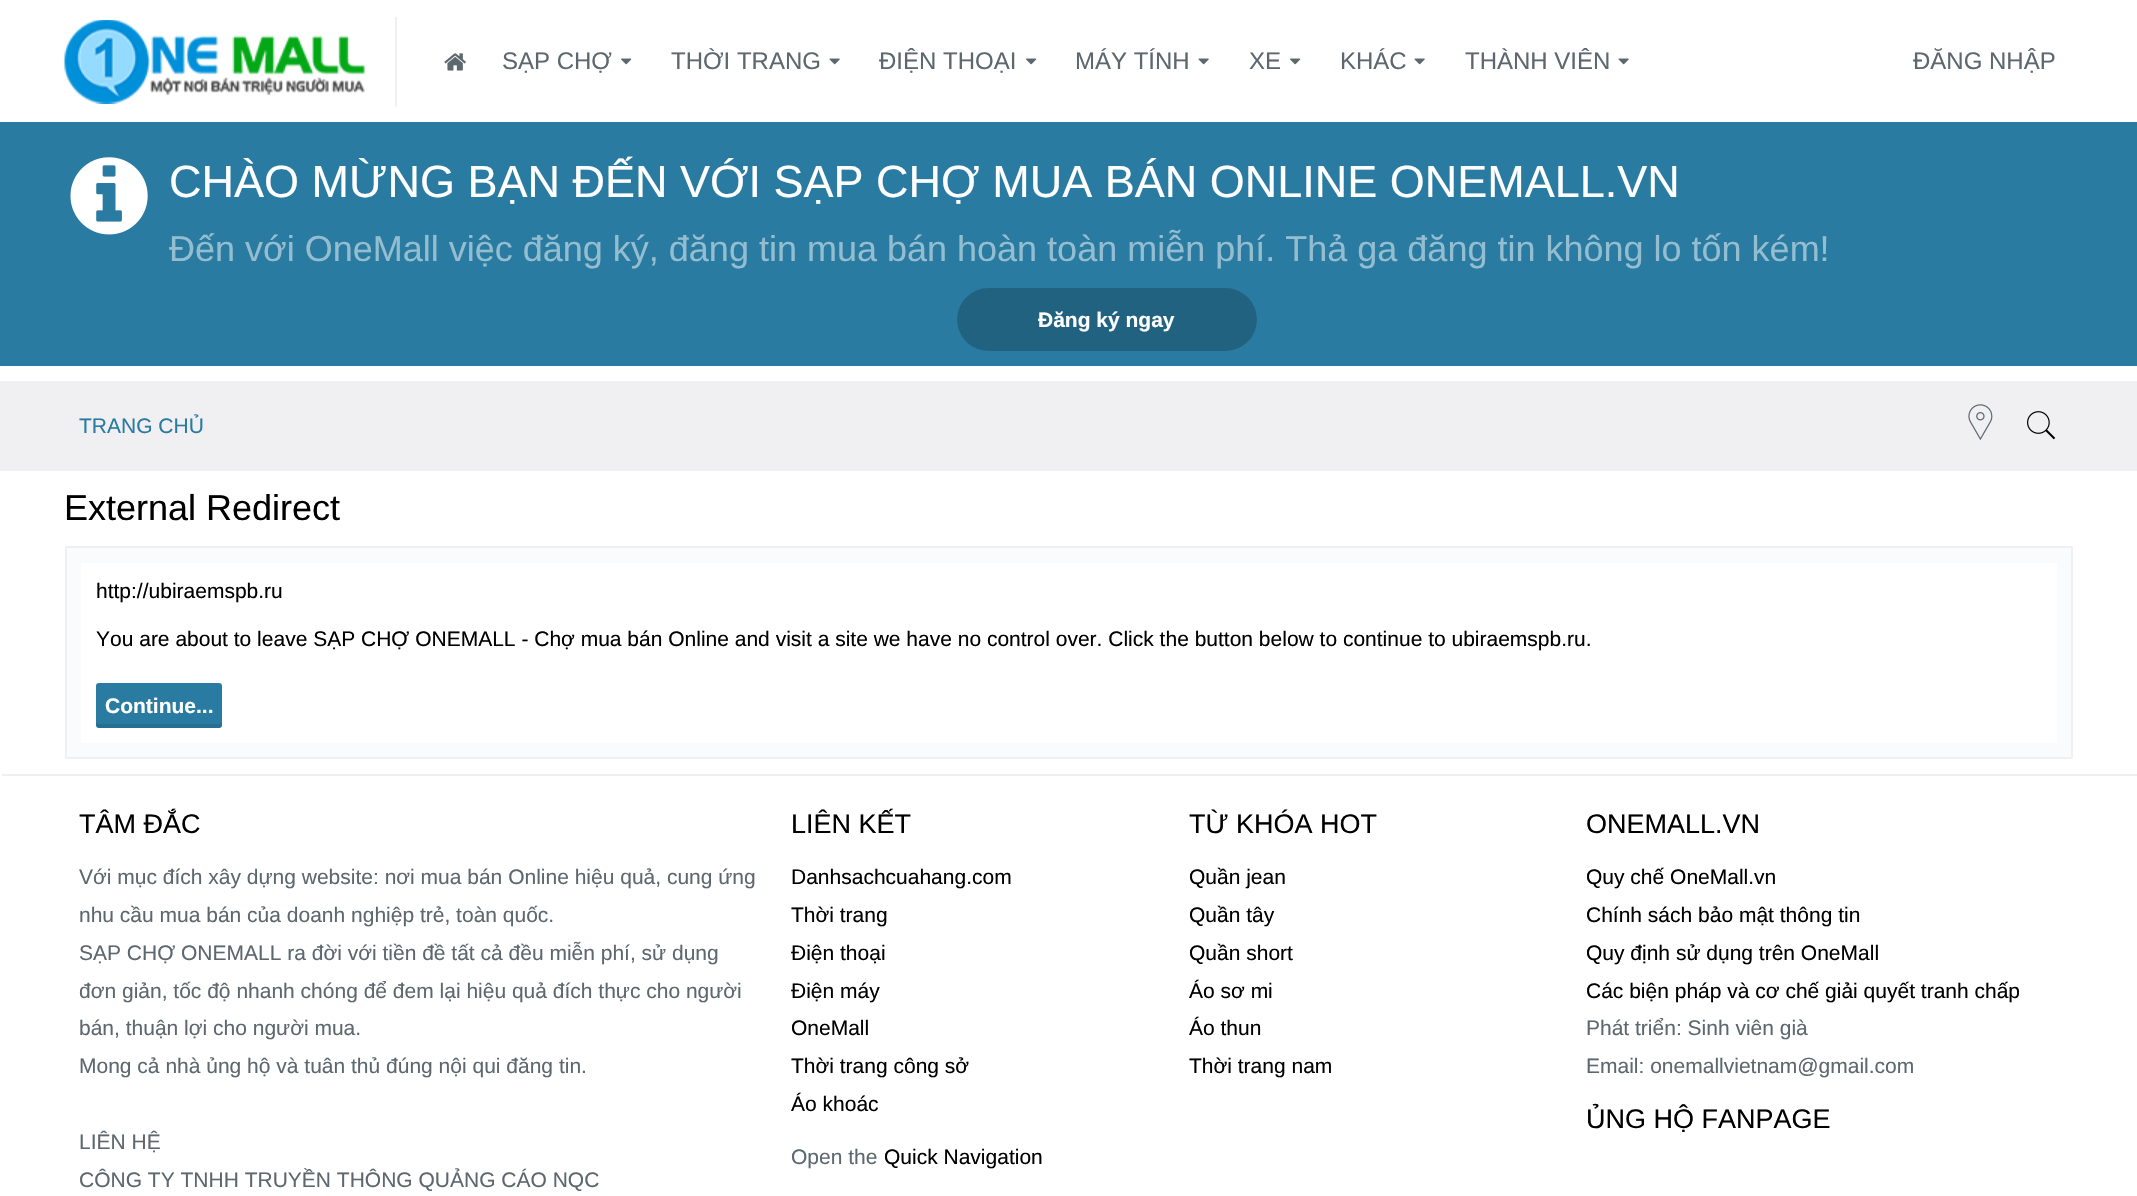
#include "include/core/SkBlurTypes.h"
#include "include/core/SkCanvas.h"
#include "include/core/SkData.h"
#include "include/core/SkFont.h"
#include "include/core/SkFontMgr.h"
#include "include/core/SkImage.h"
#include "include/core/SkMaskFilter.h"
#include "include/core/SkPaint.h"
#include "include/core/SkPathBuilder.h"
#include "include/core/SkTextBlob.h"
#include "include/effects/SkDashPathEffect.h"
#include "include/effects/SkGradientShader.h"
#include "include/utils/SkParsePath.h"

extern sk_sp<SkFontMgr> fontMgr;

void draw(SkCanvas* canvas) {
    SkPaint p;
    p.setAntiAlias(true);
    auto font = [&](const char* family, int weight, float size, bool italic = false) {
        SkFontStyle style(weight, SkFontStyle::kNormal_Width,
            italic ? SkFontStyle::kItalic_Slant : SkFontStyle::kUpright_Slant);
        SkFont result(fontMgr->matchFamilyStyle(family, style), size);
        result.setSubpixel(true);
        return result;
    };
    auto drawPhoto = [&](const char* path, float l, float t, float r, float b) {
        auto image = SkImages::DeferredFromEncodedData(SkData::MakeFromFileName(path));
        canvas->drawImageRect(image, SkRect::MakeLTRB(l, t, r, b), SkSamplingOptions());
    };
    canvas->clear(0xFFFFFFFF);
    p.setColor(0xFFF0F0F2);
    canvas->drawRect(SkRect::MakeLTRB(395, 17, 397, 107), p);
    drawPhoto("media/1.png", 64, 20, 365, 104);
    drawPhoto("media/2.png", 444, 53, 466, 71);
    auto font1 = font("Liberation Sans", 400, 24);
    p.setColor(0xFF5C676E);
    canvas->drawString("SẠP CHỢ", 502, 69, font1, p);
    drawPhoto("media/3.png", 621, 58, 632, 65);
    canvas->drawString("THỜI TRANG", 671, 69, font1, p);
    drawPhoto("media/4.png", 829, 58, 840, 65);
    canvas->drawString("ĐIỆN THOẠI", 879, 69, font1, p);
    drawPhoto("media/3.png", 1026, 58, 1037, 65);
    canvas->drawString("MÁY TÍNH", 1075, 69, font1, p);
    drawPhoto("media/4.png", 1198, 58, 1209, 65);
    canvas->drawString("XE", 1249, 69, font1, p);
    drawPhoto("media/3.png", 1290, 58, 1301, 65);
    canvas->drawString("KHÁC", 1340, 69, font1, p);
    drawPhoto("media/4.png", 1414, 58, 1425, 65);
    canvas->drawString("THÀNH VIÊN", 1465, 69, font1, p);
    drawPhoto("media/4.png", 1618, 58, 1629, 65);
    canvas->drawString("ĐĂNG NHẬP", 1913, 69, font1, p);
    p.setColor(0xFF2A7BA1);
    canvas->drawRect(SkRect::MakeLTRB(0, 122, 2137, 366), p);
    drawPhoto("media/5.png", 70, 157, 148, 235);
    auto font2 = font("Liberation Sans", 400, 45);
    p.setColor(0xFFFFFFFF);
    canvas->drawString("CHÀO MỪNG BẠN ĐẾN VỚI SẠP CHỢ MUA BÁN ONLINE ONEMALL.VN", 169, 197, font2, p);
    auto font3 = font("Liberation Sans", 400, 36);
    p.setColor(0xFF95BDD0);
    canvas->drawString("Đến với OneMall việc đăng ký, đăng tin mua bán hoàn toàn miễn phí. Thả ga đăng tin không lo tốn kém!", 169, 261, font3, p);
    p.setColor(0xFF226281);
    canvas->drawRoundRect(SkRect::MakeLTRB(957, 288, 1257, 351), 31.5f, 31.5f, p);
    auto font4 = font("Liberation Sans", 700, 21);
    p.setColor(0xFFFFFFFF);
    canvas->drawString("Đăng ký ngay", 1038, 327, font4, p);
    p.setColor(0xFFF0F0F2);
    canvas->drawRect(SkRect::MakeLTRB(0, 381, 2137, 471), p);
    auto font5 = font("Liberation Sans", 400, 21);
    p.setColor(0xFF2A7BA1);
    canvas->drawString("TRANG CHỦ", 79, 433, font5, p);
    drawPhoto("media/6.png", 1968, 404, 1993, 441);
    drawPhoto("media/7.png", 2027, 411, 2056, 440);
    p.setColor(0xFF000000);
    canvas->drawString("External Redirect", 64, 520, font3, p);
    p.setColor(0xFFF9FBFC);
    canvas->drawRoundRect(SkRect::MakeLTRB(66, 547, 2072, 758), 0.5f, 0.5f, p);
    p.setStyle(SkPaint::kStroke_Style);
    p.setStrokeWidth(2);
    p.setColor(0xFFF0F0F2);
    canvas->drawRoundRect(SkRect::MakeLTRB(66, 547, 2072, 758), 0.5f, 0.5f, p);
    p.setStyle(SkPaint::kFill_Style);
    p.setColor(0xFFFFFFFF);
    canvas->drawRect(SkRect::MakeLTRB(81, 563, 2057, 743), p);
    p.setColor(0xFF000000);
    canvas->drawString("http://ubiraemspb.ru", 96, 598, font5, p);
    canvas->drawString("You are about to leave SẠP CHỢ ONEMALL - Chợ mua bán Online and visit a site we have no control over. Click the button below to continue to ubiraemspb.ru.", 96, 646, font5, p);
    p.setColor(0xFF2A7BA1);
    canvas->drawRoundRect(SkRect::MakeLTRB(96, 683, 222, 728), 3, 3, p);
    p.setColor(0x1A000000);
    canvas->drawPath(SkPathBuilder().moveTo(96, 722).lineTo(96, 725).cubicTo(96, 727, 97, 728, 99, 728).lineTo(219, 728).cubicTo(221, 728, 222, 727, 222, 725).lineTo(222, 722).cubicTo(222, 723, 221, 724, 219, 724).lineTo(99, 724).cubicTo(97, 724, 96, 723, 96, 722).close().detach(), p);
    p.setColor(0xFFFFFFFF);
    canvas->drawString("Continue...", 105, 713, font4, p);
    p.setColor(0xFFF0F0F2);
    canvas->drawRect(SkRect::MakeLTRB(2, 774, 2137, 776), p);
    auto font6 = font("Liberation Sans", 400, 27);
    p.setColor(0xFF000000);
    canvas->drawString("TÂM ĐẮC", 79, 833, font6, p);
    p.setColor(0xFF5C676E);
    {
        const struct { const char* s; float x, y; } items[] = {
            {"Với mục đích xây dựng website: nơi mua bán Online hiệu quả, cung ứng", 79, 884},
            {"nhu cầu mua bán của doanh nghiệp trẻ, toàn quốc.", 79, 922},
            {"SẠP CHỢ ONEMALL ra đời với tiền đề tất cả đều miễn phí, sử dụng", 79, 960},
            {"đơn giản, tốc độ nhanh chóng để đem lại hiệu quả đích thực cho người", 79, 998},
            {"bán, thuận lợi cho người mua.", 79, 1035},
            {"Mong cả nhà ủng hộ và tuân thủ đúng nội qui đăng tin.", 79, 1073},
            {"LIÊN HỆ", 79, 1149},
            {"CÔNG TY TNHH TRUYỀN THÔNG QUẢNG CÁO NQC", 79, 1187},
        };
        for (auto [s, x, y] : items) {
            canvas->drawString(s, x, y, font5, p);
        }
    }
    p.setColor(0xFF000000);
    canvas->drawString("LIÊN KẾT", 791, 833, font6, p);
    {
        const struct { const char* s; float x, y; } items[] = {
            {"Danhsachcuahang.com", 791, 884},
            {"Thời trang", 791, 922},
            {"Điện thoại", 791, 960},
            {"Điện máy", 791, 998},
            {"OneMall", 791, 1035},
            {"Thời trang công sở", 791, 1073},
            {"Áo khoác", 791, 1111},
        };
        for (auto [s, x, y] : items) {
            canvas->drawString(s, x, y, font5, p);
        }
    }
    p.setColor(0xFF5C676E);
    canvas->drawString("Open the", 791, 1164, font5, p);
    p.setColor(0xFF000000);
    canvas->drawString("Quick Navigation", 884, 1164, font5, p);
    canvas->drawString("TỪ KHÓA HOT", 1189, 833, font6, p);
    {
        const struct { const char* s; float x, y; } items[] = {
            {"Quần jean", 1189, 884},
            {"Quần tây", 1189, 922},
            {"Quần short", 1189, 960},
            {"Áo sơ mi", 1189, 998},
            {"Áo thun", 1189, 1035},
            {"Thời trang nam", 1189, 1073},
        };
        for (auto [s, x, y] : items) {
            canvas->drawString(s, x, y, font5, p);
        }
    }
    canvas->drawString("ONEMALL.VN", 1586, 833, font6, p);
    {
        const struct { const char* s; float x, y; } items[] = {
            {"Quy chế OneMall.vn", 1586, 884},
            {"Chính sách bảo mật thông tin", 1586, 922},
            {"Quy định sử dụng trên OneMall", 1586, 960},
            {"Các biện pháp và cơ chế giải quyết tranh chấp", 1586, 998},
        };
        for (auto [s, x, y] : items) {
            canvas->drawString(s, x, y, font5, p);
        }
    }
    p.setColor(0xFF5C676E);
    canvas->drawString("Phát triển: Sinh viên già", 1586, 1035, font5, p);
    canvas->drawString("Email: onemallvietnam@gmail.com", 1586, 1073, font5, p);
    p.setColor(0xFF000000);
    canvas->drawString("ỦNG HỘ FANPAGE", 1586, 1128, font6, p);
}
